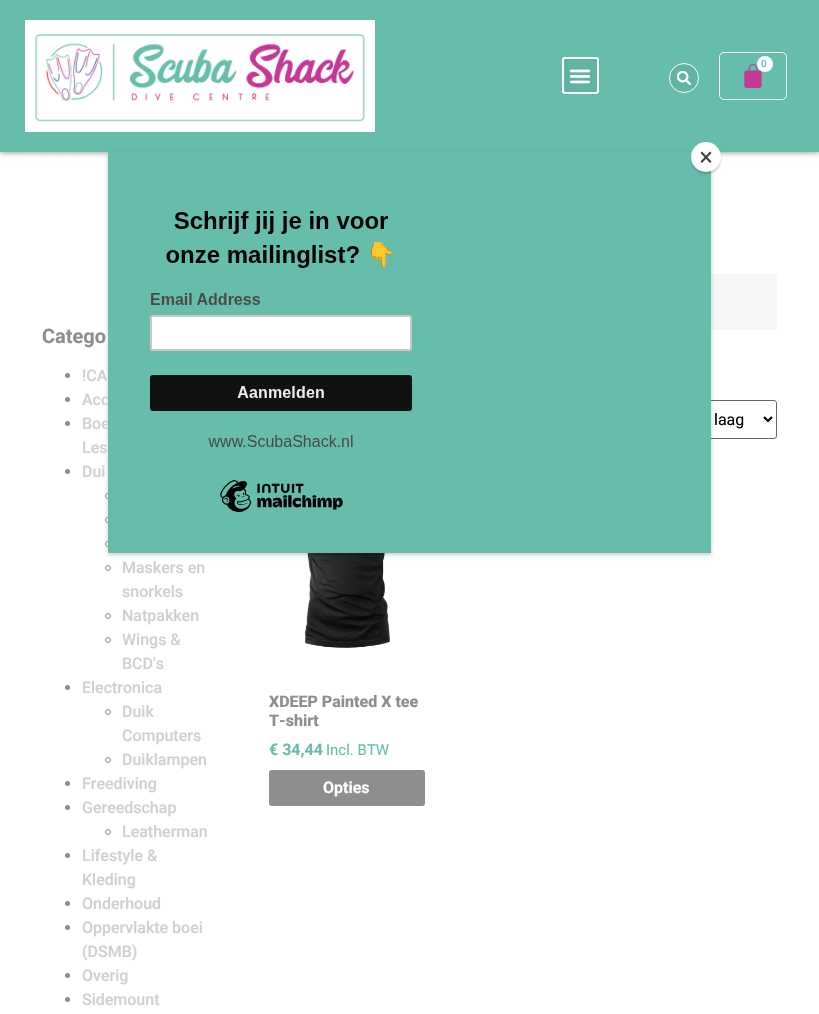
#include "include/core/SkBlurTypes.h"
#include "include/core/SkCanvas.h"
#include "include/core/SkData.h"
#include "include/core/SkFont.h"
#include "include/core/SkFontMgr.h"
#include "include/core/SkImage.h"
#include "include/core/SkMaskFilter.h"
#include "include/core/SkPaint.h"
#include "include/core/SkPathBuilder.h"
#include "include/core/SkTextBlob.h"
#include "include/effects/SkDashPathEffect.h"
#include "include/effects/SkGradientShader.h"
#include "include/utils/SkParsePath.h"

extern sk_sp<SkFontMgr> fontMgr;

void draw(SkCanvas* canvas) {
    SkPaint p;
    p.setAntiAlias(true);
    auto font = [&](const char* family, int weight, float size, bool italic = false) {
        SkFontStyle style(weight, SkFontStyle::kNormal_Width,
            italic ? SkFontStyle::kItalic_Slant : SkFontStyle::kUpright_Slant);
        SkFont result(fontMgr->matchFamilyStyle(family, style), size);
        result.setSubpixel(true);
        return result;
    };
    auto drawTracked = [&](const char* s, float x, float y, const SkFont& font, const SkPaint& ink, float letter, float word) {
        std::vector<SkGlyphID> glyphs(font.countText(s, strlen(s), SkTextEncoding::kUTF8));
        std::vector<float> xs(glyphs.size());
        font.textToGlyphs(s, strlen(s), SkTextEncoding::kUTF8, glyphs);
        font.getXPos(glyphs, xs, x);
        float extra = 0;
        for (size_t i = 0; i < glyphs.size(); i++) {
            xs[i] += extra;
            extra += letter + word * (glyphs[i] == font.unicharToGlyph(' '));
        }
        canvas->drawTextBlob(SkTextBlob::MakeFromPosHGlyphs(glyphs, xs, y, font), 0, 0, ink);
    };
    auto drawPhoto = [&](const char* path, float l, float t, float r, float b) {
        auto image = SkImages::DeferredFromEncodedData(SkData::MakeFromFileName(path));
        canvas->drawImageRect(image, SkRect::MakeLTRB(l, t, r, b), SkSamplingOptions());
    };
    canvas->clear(0xFFFFFFFF);
    p.setColor(0x80000000);
    p.setMaskFilter(SkMaskFilter::MakeBlur(kNormal_SkBlurStyle, 3));
    canvas->drawRect(SkRect::MakeLTRB(0, 0, 819, 152), p);
    p.setMaskFilter(nullptr);
    p.setColor(0xFF66BDAC);
    canvas->drawRect(SkRect::MakeLTRB(0, 0, 819, 152), p);
    drawPhoto("media/1.png", 25, 20, 375, 132);
    p.setColor(0xFF61B4A3);
    canvas->drawRoundRect(SkRect::MakeLTRB(563, 58, 598, 93), 2, 2, p);
    p.setStyle(SkPaint::kStroke_Style);
    p.setStrokeWidth(2);
    p.setColor(0xFFFFFFFF);
    canvas->drawRoundRect(SkRect::MakeLTRB(563, 58, 598, 93), 2, 2, p);
    drawPhoto("media/2.png", 569, 69, 590, 84);
    p.setStyle(SkPaint::kFill_Style);
    p.setColor(0xFF61B4A3);
    canvas->drawCircle(684, 78, 14.5f, p);
    p.setStyle(SkPaint::kStroke_Style);
    p.setStrokeWidth(1);
    p.setColor(0xFFFFFFFF);
    canvas->drawCircle(684, 78, 14.5f, p);
    drawPhoto("media/3.png", 677, 71, 692, 85);
    canvas->drawRoundRect(SkRect::MakeLTRB(719.5f, 52.5f, 786.5f, 99.5f), 4.5f, 4.5f, p);
    drawPhoto("media/4.png", 744, 64, 762, 88);
    p.setStyle(SkPaint::kFill_Style);
    canvas->drawCircle(765, 64, 8, p);
    auto font1 = font("Roboto", 500, 10);
    p.setColor(0xFF66BDAC);
    drawTracked("0", 761, 67, font1, p, 2, 0);
    p.setStyle(SkPaint::kStroke_Style);
    p.setColor(0xFF8D8E8F);
    canvas->drawCircle(108, 496, 2.5f, p);
    canvas->drawCircle(108, 520, 2.5f, p);
    canvas->drawCircle(108, 544, 2.5f, p);
    p.setStyle(SkPaint::kFill_Style);
    p.setColor(0xFFF5F6F8);
    canvas->drawRoundRect(SkRect::MakeLTRB(269, 274, 777, 330), 3, 3, p);
    p.setStyle(SkPaint::kStroke_Style);
    p.setColor(0xFF666666);
    canvas->drawRoundRect(SkRect::MakeLTRB(501.5f, 400.5f, 776.5f, 438.5f), 2.5f, 2.5f, p);
    drawPhoto("media/6.png", 277, 553, 417, 648);
    p.setStyle(SkPaint::kFill_Style);
    p.setColor(0x33000000);
    p.setMaskFilter(SkMaskFilter::MakeBlur(kNormal_SkBlurStyle, 2));
    canvas->drawRect(SkRect::MakeLTRB(108, 154, 711, 555), p);
    p.setMaskFilter(nullptr);
    auto font2 = font("Roboto", 500, 16);
    p.setColor(0xFFCFCFCF);
    canvas->drawString("Acc", 82, 405, font2, p);
    canvas->drawString("Boe", 82, 429, font2, p);
    drawPhoto("media/5.png", 108, 152, 711, 553);
    p.setColor(0x33000000);
    p.setMaskFilter(SkMaskFilter::MakeBlur(kNormal_SkBlurStyle, 1));
    canvas->drawRoundRect(SkRect::MakeLTRB(691, 144, 721, 174), 15, 15, p);
    p.setMaskFilter(nullptr);
    p.setColor(0xFFFFFFFF);
    canvas->drawCircle(706, 157, 15, p);
    p.setColor(0xFF414141);
    canvas->drawPath(SkPathBuilder().moveTo(710, 151.5f).lineTo(711.5f, 153).lineTo(702, 163).lineTo(700.5f, 161.5f).close().detach(), p);
    canvas->drawPath(SkPathBuilder().moveTo(700.5f, 153).lineTo(702, 151.5f).lineTo(711.5f, 161.5f).lineTo(710, 163).close().detach(), p);
    auto font3 = font("Roboto", 700, 20);
    p.setColor(0xFF8D8E8F);
    canvas->drawString("Catego", 42, 343, font3, p);
    canvas->drawCircle(67.5f, 375.5f, 2.5f, p);
    p.setColor(0xFFCFCFCF);
    canvas->drawString("!CA", 82, 381, font2, p);
    p.setColor(0xFF8D8E8F);
    canvas->drawCircle(67.5f, 399.5f, 2.5f, p);
    canvas->drawCircle(67.5f, 423.5f, 2.5f, p);
    p.setColor(0xFFCFCFCF);
    canvas->drawString("Les", 82, 453, font2, p);
    p.setColor(0xFF8D8E8F);
    canvas->drawCircle(67.5f, 471.5f, 2.5f, p);
    p.setColor(0xFFCFCFCF);
    canvas->drawString("Dui", 82, 477, font2, p);
    p.setStyle(SkPaint::kStroke_Style);
    p.setColor(0xFF8D8E8F);
    canvas->drawCircle(108, 568, 2.5f, p);
    p.setStyle(SkPaint::kFill_Style);
    p.setColor(0xFFCFCFCF);
    canvas->drawString("Maskers en", 122, 573, font2, p);
    canvas->drawString("snorkels", 122, 597, font2, p);
    p.setStyle(SkPaint::kStroke_Style);
    p.setColor(0xFF8D8E8F);
    canvas->drawCircle(108, 616, 2.5f, p);
    p.setStyle(SkPaint::kFill_Style);
    p.setColor(0xFFCFCFCF);
    canvas->drawString("Natpakken", 122, 621, font2, p);
    p.setStyle(SkPaint::kStroke_Style);
    p.setColor(0xFF8D8E8F);
    canvas->drawCircle(108, 640, 2.5f, p);
    p.setStyle(SkPaint::kFill_Style);
    p.setColor(0xFFCFCFCF);
    canvas->drawString("Wings &", 122, 645, font2, p);
    canvas->drawString("BCD's", 122, 669, font2, p);
    p.setColor(0xFF8D8E8F);
    canvas->drawCircle(67.5f, 687.5f, 2.5f, p);
    p.setColor(0xFFCFCFCF);
    canvas->drawString("Electronica", 82, 693, font2, p);
    p.setStyle(SkPaint::kStroke_Style);
    p.setColor(0xFF8D8E8F);
    canvas->drawCircle(108, 712, 2.5f, p);
    p.setStyle(SkPaint::kFill_Style);
    p.setColor(0xFFCFCFCF);
    canvas->drawString("Duik", 122, 717, font2, p);
    canvas->drawString("Computers", 122, 741, font2, p);
    p.setStyle(SkPaint::kStroke_Style);
    p.setColor(0xFF8D8E8F);
    canvas->drawCircle(108, 760, 2.5f, p);
    p.setStyle(SkPaint::kFill_Style);
    p.setColor(0xFFCFCFCF);
    canvas->drawString("Duiklampen", 122, 765, font2, p);
    p.setColor(0xFF8D8E8F);
    canvas->drawCircle(67.5f, 783.5f, 2.5f, p);
    p.setColor(0xFFCFCFCF);
    canvas->drawString("Freediving", 82, 789, font2, p);
    p.setColor(0xFF8D8E8F);
    canvas->drawCircle(67.5f, 807.5f, 2.5f, p);
    p.setColor(0xFFCFCFCF);
    canvas->drawString("Gereedschap", 82, 813, font2, p);
    p.setStyle(SkPaint::kStroke_Style);
    p.setColor(0xFF8D8E8F);
    canvas->drawCircle(108, 832, 2.5f, p);
    p.setStyle(SkPaint::kFill_Style);
    p.setColor(0xFFCFCFCF);
    canvas->drawString("Leatherman", 122, 837, font2, p);
    p.setColor(0xFF8D8E8F);
    canvas->drawCircle(67.5f, 855.5f, 2.5f, p);
    p.setColor(0xFFCFCFCF);
    canvas->drawString("Lifestyle &", 82, 861, font2, p);
    canvas->drawString("Kleding", 82, 885, font2, p);
    p.setColor(0xFF8D8E8F);
    canvas->drawCircle(67.5f, 903.5f, 2.5f, p);
    p.setColor(0xFFCFCFCF);
    canvas->drawString("Onderhoud", 82, 909, font2, p);
    p.setColor(0xFF8D8E8F);
    canvas->drawCircle(67.5f, 927.5f, 2.5f, p);
    p.setColor(0xFFCFCFCF);
    canvas->drawString("Oppervlakte boei", 82, 933, font2, p);
    canvas->drawString("(DSMB)", 82, 957, font2, p);
    p.setColor(0xFF8D8E8F);
    canvas->drawCircle(67.5f, 975.5f, 2.5f, p);
    p.setColor(0xFFCFCFCF);
    canvas->drawString("Overig", 82, 981, font2, p);
    p.setColor(0xFF8D8E8F);
    canvas->drawCircle(67.5f, 999.5f, 2.5f, p);
    p.setColor(0xFFCFCFCF);
    canvas->drawString("Sidemount", 82, 1005, font2, p);
    p.setStyle(SkPaint::kStroke_Style);
    p.setStrokeWidth(2);
    p.setColor(0xFF000000);
    canvas->drawPath(SkPathBuilder().moveTo(764, 417).lineTo(768, 421).lineTo(772, 417).detach(), p);
    auto font4 = font("Roboto", 400, 16);
    p.setStyle(SkPaint::kFill_Style);
    canvas->drawString("laag", 714, 425, font4, p);
    auto font5 = font("Roboto", 800, 16);
    p.setColor(0xFF8D8E8F);
    canvas->drawString("XDEEP Painted X tee", 269, 707, font5, p);
    canvas->drawString("T-shirt", 269, 726, font5, p);
    auto font6 = font("Roboto", 700, 16);
    p.setColor(0xFF66BDAC);
    canvas->drawString("€ 34,44", 269, 755, font6, p);
    auto font7 = font("Roboto", 400, 15);
    canvas->drawString("Incl. BTW", 326, 755, font7, p);
    p.setColor(0xFF8D8E8F);
    canvas->drawRoundRect(SkRect::MakeLTRB(269, 770, 425, 806), 3, 3, p);
    p.setColor(0xFFFFFFFF);
    canvas->drawString("Opties", 323, 793, font6, p);
}
